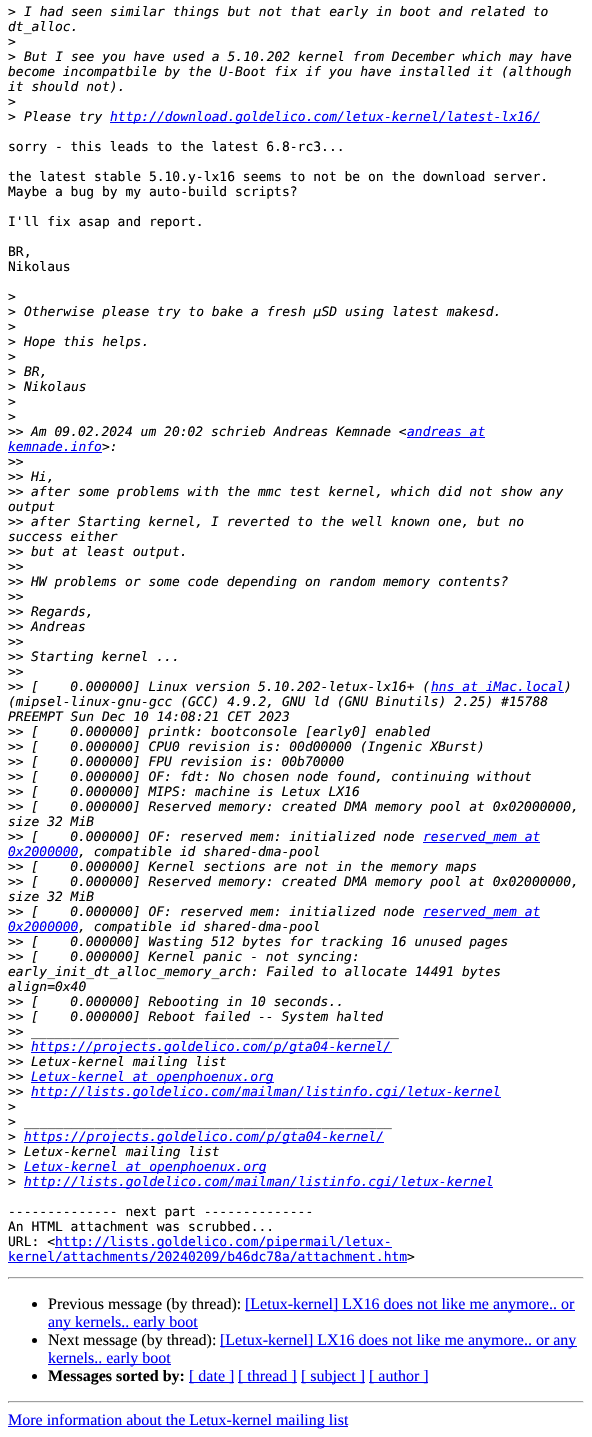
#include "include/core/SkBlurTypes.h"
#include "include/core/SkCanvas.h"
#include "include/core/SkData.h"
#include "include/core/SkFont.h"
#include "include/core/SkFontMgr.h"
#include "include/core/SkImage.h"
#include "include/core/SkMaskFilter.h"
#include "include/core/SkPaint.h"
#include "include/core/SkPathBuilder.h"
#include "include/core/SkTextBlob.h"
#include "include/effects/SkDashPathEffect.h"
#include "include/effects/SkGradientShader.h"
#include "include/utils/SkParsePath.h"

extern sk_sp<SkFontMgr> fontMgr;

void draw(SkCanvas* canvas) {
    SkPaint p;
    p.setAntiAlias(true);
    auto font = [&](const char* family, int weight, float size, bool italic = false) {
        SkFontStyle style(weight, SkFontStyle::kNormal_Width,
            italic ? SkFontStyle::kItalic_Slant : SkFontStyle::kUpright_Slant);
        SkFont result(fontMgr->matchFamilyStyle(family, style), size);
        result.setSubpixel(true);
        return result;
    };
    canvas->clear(0xFFFFFFFF);
    auto font1 = font("DejaVu Sans Mono", 400, 13);
    p.setColor(0xFF000000);
    canvas->drawString(">", 8, 16, font1, p);
    auto font2 = font("DejaVu Sans Mono", 400, 13, true);
    canvas->drawString("I had seen similar things but not that early in boot and related to", 24, 16, font2, p);
    canvas->drawString("dt_alloc.", 8, 31, font2, p);
    canvas->drawString(">", 8, 46, font1, p);
    canvas->drawString(">", 8, 61, font1, p);
    {
        const struct { const char* s; float x, y; } items[] = {
            {"But I see you have used a 5.10.202 kernel from December which may have", 24, 61},
            {"become incompatbile by the U-Boot fix if you have installed it (although", 8, 76},
            {"it should not).", 8, 91},
        };
        for (auto [s, x, y] : items) {
            canvas->drawString(s, x, y, font2, p);
        }
    }
    canvas->drawString(">", 8, 106, font1, p);
    canvas->drawString(">", 8, 121, font1, p);
    canvas->drawString("Please try", 24, 121, font2, p);
    p.setColor(0xFF0000EE);
    canvas->drawRect(SkRect::MakeLTRB(110, 122, 540, 123), p);
    canvas->drawString("http://download.goldelico.com/letux-kernel/latest-lx16/", 110, 121, font2, p);
    p.setColor(0xFF000000);
    {
        const struct { const char* s; float x, y; } items[] = {
            {"sorry - this leads to the latest 6.8-rc3...", 8, 151},
            {"the latest stable 5.10.y-lx16 seems to not be on the download server.", 8, 181},
            {"Maybe a bug by my auto-build scripts?", 8, 196},
            {"I'll fix asap and report.", 8, 226},
            {"BR,", 8, 256},
            {"Nikolaus", 8, 271},
            {">", 8, 301},
            {">", 8, 316},
        };
        for (auto [s, x, y] : items) {
            canvas->drawString(s, x, y, font1, p);
        }
    }
    canvas->drawString("Otherwise please try to bake a fresh µSD using latest makesd.", 24, 316, font2, p);
    canvas->drawString(">", 8, 331, font1, p);
    canvas->drawString(">", 8, 346, font1, p);
    canvas->drawString("Hope this helps.", 24, 346, font2, p);
    canvas->drawString(">", 8, 361, font1, p);
    canvas->drawString(">", 8, 376, font1, p);
    canvas->drawString("BR,", 24, 376, font2, p);
    canvas->drawString(">", 8, 391, font1, p);
    canvas->drawString("Nikolaus", 24, 391, font2, p);
    {
        const struct { const char* s; float x, y; } items[] = {
            {">", 8, 406},
            {">", 8, 421},
            {">>", 8, 436},
        };
        for (auto [s, x, y] : items) {
            canvas->drawString(s, x, y, font1, p);
        }
    }
    canvas->drawString("Am 09.02.2024 um 20:02 schrieb Andreas Kemnade <", 31, 436, font2, p);
    p.setColor(0xFF0000EE);
    canvas->drawRect(SkRect::MakeLTRB(407, 437, 485, 438), p);
    canvas->drawString("andreas at", 407, 436, font2, p);
    canvas->drawString("kemnade.info", 8, 451, font2, p);
    p.setColor(0xFF000000);
    canvas->drawString(">:", 102, 451, font2, p);
    p.setColor(0xFF0000EE);
    canvas->drawRect(SkRect::MakeLTRB(8, 452, 102, 453), p);
    p.setColor(0xFF000000);
    canvas->drawString(">>", 8, 466, font1, p);
    canvas->drawString(">>", 8, 481, font1, p);
    canvas->drawString("Hi,", 31, 481, font2, p);
    canvas->drawString(">>", 8, 496, font1, p);
    canvas->drawString("after some problems with the mmc test kernel, which did not show any", 31, 496, font2, p);
    canvas->drawString("output", 8, 511, font2, p);
    canvas->drawString(">>", 8, 526, font1, p);
    canvas->drawString("after Starting kernel, I reverted to the well known one, but no", 31, 526, font2, p);
    canvas->drawString("success either", 8, 541, font2, p);
    canvas->drawString(">>", 8, 556, font1, p);
    canvas->drawString("but at least output.", 31, 556, font2, p);
    canvas->drawString(">>", 8, 571, font1, p);
    canvas->drawString(">>", 8, 586, font1, p);
    canvas->drawString("HW problems or some code depending on random memory contents?", 31, 586, font2, p);
    canvas->drawString(">>", 8, 601, font1, p);
    canvas->drawString(">>", 8, 616, font1, p);
    canvas->drawString("Regards,", 31, 616, font2, p);
    canvas->drawString(">>", 8, 631, font1, p);
    canvas->drawString("Andreas", 31, 631, font2, p);
    canvas->drawString(">>", 8, 646, font1, p);
    canvas->drawString(">>", 8, 661, font1, p);
    canvas->drawString("Starting kernel ...", 31, 661, font2, p);
    canvas->drawString(">>", 8, 676, font1, p);
    canvas->drawString(">>", 8, 691, font1, p);
    canvas->drawString("[    0.000000] Linux version 5.10.202-letux-lx16+ (", 31, 691, font2, p);
    p.setColor(0xFF0000EE);
    canvas->drawString("hns at iMac.local", 431, 691, font2, p);
    p.setColor(0xFF000000);
    canvas->drawString(")", 564, 691, font2, p);
    p.setColor(0xFF0000EE);
    canvas->drawRect(SkRect::MakeLTRB(431, 692, 564, 693), p);
    p.setColor(0xFF000000);
    canvas->drawString("(mipsel-linux-gnu-gcc (GCC) 4.9.2, GNU ld (GNU Binutils) 2.25) #15788", 8, 706, font2, p);
    canvas->drawString("PREEMPT Sun Dec 10 14:08:21 CET 2023", 8, 721, font2, p);
    canvas->drawString(">>", 8, 736, font1, p);
    canvas->drawString("[    0.000000] printk: bootconsole [early0] enabled", 31, 736, font2, p);
    canvas->drawString(">>", 8, 751, font1, p);
    canvas->drawString("[    0.000000] CPU0 revision is: 00d00000 (Ingenic XBurst)", 31, 751, font2, p);
    canvas->drawString(">>", 8, 766, font1, p);
    canvas->drawString("[    0.000000] FPU revision is: 00b70000", 31, 766, font2, p);
    canvas->drawString(">>", 8, 781, font1, p);
    canvas->drawString("[    0.000000] OF: fdt: No chosen node found, continuing without", 31, 781, font2, p);
    canvas->drawString(">>", 8, 796, font1, p);
    canvas->drawString("[    0.000000] MIPS: machine is Letux LX16", 31, 796, font2, p);
    canvas->drawString(">>", 8, 811, font1, p);
    canvas->drawString("[    0.000000] Reserved memory: created DMA memory pool at 0x02000000,", 31, 811, font2, p);
    canvas->drawString("size 32 MiB", 8, 826, font2, p);
    canvas->drawString(">>", 8, 841, font1, p);
    canvas->drawString("[    0.000000] OF: reserved mem: initialized node", 31, 841, font2, p);
    p.setColor(0xFF0000EE);
    canvas->drawRect(SkRect::MakeLTRB(423, 842, 540, 843), p);
    canvas->drawString("reserved_mem at", 423, 841, font2, p);
    canvas->drawString("0x2000000", 8, 856, font2, p);
    p.setColor(0xFF000000);
    canvas->drawString(", compatible id shared-dma-pool", 78, 856, font2, p);
    p.setColor(0xFF0000EE);
    canvas->drawRect(SkRect::MakeLTRB(8, 857, 78, 858), p);
    p.setColor(0xFF000000);
    canvas->drawString(">>", 8, 871, font1, p);
    canvas->drawString("[    0.000000] Kernel sections are not in the memory maps", 31, 871, font2, p);
    canvas->drawString(">>", 8, 886, font1, p);
    canvas->drawString("[    0.000000] Reserved memory: created DMA memory pool at 0x02000000,", 31, 886, font2, p);
    canvas->drawString("size 32 MiB", 8, 901, font2, p);
    canvas->drawString(">>", 8, 916, font1, p);
    canvas->drawString("[    0.000000] OF: reserved mem: initialized node", 31, 916, font2, p);
    p.setColor(0xFF0000EE);
    canvas->drawRect(SkRect::MakeLTRB(423, 917, 540, 918), p);
    canvas->drawString("reserved_mem at", 423, 916, font2, p);
    canvas->drawString("0x2000000", 8, 931, font2, p);
    p.setColor(0xFF000000);
    canvas->drawString(", compatible id shared-dma-pool", 78, 931, font2, p);
    p.setColor(0xFF0000EE);
    canvas->drawRect(SkRect::MakeLTRB(8, 932, 78, 933), p);
    p.setColor(0xFF000000);
    canvas->drawString(">>", 8, 946, font1, p);
    canvas->drawString("[    0.000000] Wasting 512 bytes for tracking 16 unused pages", 31, 946, font2, p);
    canvas->drawString(">>", 8, 961, font1, p);
    {
        const struct { const char* s; float x, y; } items[] = {
            {"[    0.000000] Kernel panic - not syncing:", 31, 961},
            {"early_init_dt_alloc_memory_arch: Failed to allocate 14491 bytes", 8, 976},
            {"align=0x40", 8, 991},
        };
        for (auto [s, x, y] : items) {
            canvas->drawString(s, x, y, font2, p);
        }
    }
    canvas->drawString(">>", 8, 1006, font1, p);
    canvas->drawString("[    0.000000] Rebooting in 10 seconds..", 31, 1006, font2, p);
    canvas->drawString(">>", 8, 1021, font1, p);
    canvas->drawString("[    0.000000] Reboot failed -- System halted", 31, 1021, font2, p);
    canvas->drawString(">>", 8, 1036, font1, p);
    canvas->drawString("_______________________________________________", 31, 1036, font2, p);
    canvas->drawString(">>", 8, 1051, font1, p);
    p.setColor(0xFF0000EE);
    canvas->drawRect(SkRect::MakeLTRB(31, 1052, 392, 1053), p);
    canvas->drawString("https://projects.goldelico.com/p/gta04-kernel/", 31, 1051, font2, p);
    p.setColor(0xFF000000);
    canvas->drawString(">>", 8, 1066, font1, p);
    canvas->drawString("Letux-kernel mailing list", 31, 1066, font2, p);
    canvas->drawString(">>", 8, 1081, font1, p);
    p.setColor(0xFF0000EE);
    canvas->drawRect(SkRect::MakeLTRB(31, 1082, 274, 1083), p);
    canvas->drawString("Letux-kernel at openphoenux.org", 31, 1081, font2, p);
    p.setColor(0xFF000000);
    canvas->drawString(">>", 8, 1096, font1, p);
    p.setColor(0xFF0000EE);
    canvas->drawRect(SkRect::MakeLTRB(31, 1097, 501, 1098), p);
    canvas->drawString("http://lists.goldelico.com/mailman/listinfo.cgi/letux-kernel", 31, 1096, font2, p);
    p.setColor(0xFF000000);
    canvas->drawString(">", 8, 1111, font1, p);
    canvas->drawString(">", 8, 1126, font1, p);
    canvas->drawString("_______________________________________________", 24, 1126, font2, p);
    canvas->drawString(">", 8, 1141, font1, p);
    p.setColor(0xFF0000EE);
    canvas->drawRect(SkRect::MakeLTRB(24, 1142, 384, 1143), p);
    canvas->drawString("https://projects.goldelico.com/p/gta04-kernel/", 24, 1141, font2, p);
    p.setColor(0xFF000000);
    canvas->drawString(">", 8, 1156, font1, p);
    canvas->drawString("Letux-kernel mailing list", 24, 1156, font2, p);
    canvas->drawString(">", 8, 1171, font1, p);
    p.setColor(0xFF0000EE);
    canvas->drawRect(SkRect::MakeLTRB(24, 1172, 266, 1173), p);
    canvas->drawString("Letux-kernel at openphoenux.org", 24, 1171, font2, p);
    p.setColor(0xFF000000);
    canvas->drawString(">", 8, 1186, font1, p);
    p.setColor(0xFF0000EE);
    canvas->drawRect(SkRect::MakeLTRB(24, 1187, 493, 1188), p);
    canvas->drawString("http://lists.goldelico.com/mailman/listinfo.cgi/letux-kernel", 24, 1186, font2, p);
    p.setColor(0xFF000000);
    {
        const struct { const char* s; float x, y; } items[] = {
            {"-------------- next part --------------", 8, 1216},
            {"An HTML attachment was scrubbed...", 8, 1231},
            {"URL: <", 8, 1246},
        };
        for (auto [s, x, y] : items) {
            canvas->drawString(s, x, y, font1, p);
        }
    }
    p.setColor(0xFF0000EE);
    canvas->drawRect(SkRect::MakeLTRB(55, 1247, 392, 1248), p);
    canvas->drawString("http://lists.goldelico.com/pipermail/letux-", 55, 1246, font1, p);
    canvas->drawRect(SkRect::MakeLTRB(8, 1262, 407, 1263), p);
    canvas->drawString("kernel/attachments/20240209/b46dc78a/attachment.htm", 8, 1261, font1, p);
    p.setColor(0xFF000000);
    canvas->drawString(">", 407, 1261, font1, p);
    {
        const struct { float l, t, r, b; SkColor color; } items[] = {
            {8, 1277, 584, 1278, 0xFF9F9F9F},
            {583, 1277, 584, 1279, 0xFFEEEEEE},
            {8, 1278, 584, 1279, 0xFFEEEEEE},
            {8, 1277, 9, 1279, 0xFF9F9F9F},
        };
        for (auto [l, t, r, b, color] : items) {
            p.setColor(color);
            canvas->drawRect(SkRect::MakeLTRB(l, t, r, b), p);
        }
    }
    p.setColor(0xFF000000);
    canvas->drawCircle(34.5f, 1304.5f, 2.5f, p);
    auto font3 = font("Liberation Serif", 400, 16);
    canvas->drawString("Previous message (by thread):", 48, 1309, font3, p);
    p.setColor(0xFF0000EE);
    canvas->drawRect(SkRect::MakeLTRB(245, 1310, 575, 1311), p);
    canvas->drawString("[Letux-kernel] LX16 does not like me anymore.. or", 245, 1309, font3, p);
    canvas->drawRect(SkRect::MakeLTRB(48, 1328, 198, 1329), p);
    canvas->drawString("any kernels.. early boot", 48, 1327, font3, p);
    p.setColor(0xFF000000);
    canvas->drawCircle(34.5f, 1340.5f, 2.5f, p);
    canvas->drawString("Next message (by thread):", 48, 1345, font3, p);
    p.setColor(0xFF0000EE);
    canvas->drawRect(SkRect::MakeLTRB(220, 1346, 577, 1347), p);
    canvas->drawString("[Letux-kernel] LX16 does not like me anymore.. or any", 220, 1345, font3, p);
    canvas->drawRect(SkRect::MakeLTRB(48, 1364, 171, 1365), p);
    canvas->drawString("kernels.. early boot", 48, 1363, font3, p);
    p.setColor(0xFF000000);
    canvas->drawCircle(34.5f, 1376.5f, 2.5f, p);
    auto font4 = font("Liberation Serif", 700, 16);
    canvas->drawString("Messages sorted by:", 48, 1381, font4, p);
    p.setColor(0xFF0000EE);
    canvas->drawRect(SkRect::MakeLTRB(189, 1382, 234, 1383), p);
    canvas->drawString("[ date ]", 189, 1381, font3, p);
    canvas->drawRect(SkRect::MakeLTRB(238, 1382, 297, 1383), p);
    canvas->drawString("[ thread ]", 238, 1381, font3, p);
    canvas->drawRect(SkRect::MakeLTRB(301, 1382, 365, 1383), p);
    canvas->drawString("[ subject ]", 301, 1381, font3, p);
    canvas->drawRect(SkRect::MakeLTRB(369, 1382, 428, 1383), p);
    canvas->drawString("[ author ]", 369, 1381, font3, p);
    {
        const struct { float l, t, r, b; SkColor color; } items[] = {
            {8, 1401, 584, 1402, 0xFF9F9F9F},
            {583, 1401, 584, 1403, 0xFFEEEEEE},
            {8, 1402, 584, 1403, 0xFFEEEEEE},
            {8, 1401, 9, 1403, 0xFF9F9F9F},
            {8, 1426, 348, 1427, 0xFF0000EE},
        };
        for (auto [l, t, r, b, color] : items) {
            p.setColor(color);
            canvas->drawRect(SkRect::MakeLTRB(l, t, r, b), p);
        }
    }
    canvas->drawString("More information about the Letux-kernel mailing list", 8, 1425, font3, p);
}
